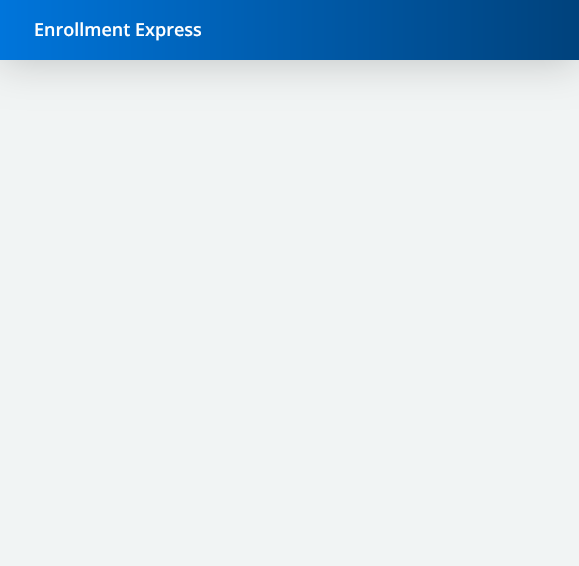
#include "include/core/SkBlurTypes.h"
#include "include/core/SkCanvas.h"
#include "include/core/SkData.h"
#include "include/core/SkFont.h"
#include "include/core/SkFontMgr.h"
#include "include/core/SkImage.h"
#include "include/core/SkMaskFilter.h"
#include "include/core/SkPaint.h"
#include "include/core/SkPathBuilder.h"
#include "include/core/SkTextBlob.h"
#include "include/effects/SkDashPathEffect.h"
#include "include/effects/SkGradientShader.h"
#include "include/utils/SkParsePath.h"

extern sk_sp<SkFontMgr> fontMgr;

void draw(SkCanvas* canvas) {
    SkPaint p;
    p.setAntiAlias(true);
    auto font = [&](const char* family, int weight, float size, bool italic = false) {
        SkFontStyle style(weight, SkFontStyle::kNormal_Width,
            italic ? SkFontStyle::kItalic_Slant : SkFontStyle::kUpright_Slant);
        SkFont result(fontMgr->matchFamilyStyle(family, style), size);
        result.setSubpixel(true);
        return result;
    };
    canvas->clear(0xFFF1F4F4);
    p.setColor(0x33000000);
    p.setMaskFilter(SkMaskFilter::MakeBlur(kNormal_SkBlurStyle, 20));
    canvas->drawRect(SkRect::MakeLTRB(0, 2, 579, 62), p);
    p.setMaskFilter(nullptr);
    {
        const SkColor colors[] = {0xFF0075DB, 0xFF00427C};
        const float stops[] = {0, 1};
        const SkPoint ends[] = {{0, 30}, {579, 30}};
        p.setShader(SkGradientShader::MakeLinear(ends, colors, stops, 2, SkTileMode::kClamp));
        p.setAlpha(255);
    }
    canvas->drawRect(SkRect::MakeLTRB(0, 0, 579, 60), p);
    auto font1 = font("Open Sans", 600, 18);
    p.setShader(nullptr);
    p.setColor(0xFFFFFFFF);
    canvas->drawString("Enrollment Express", 34, 36, font1, p);
}
